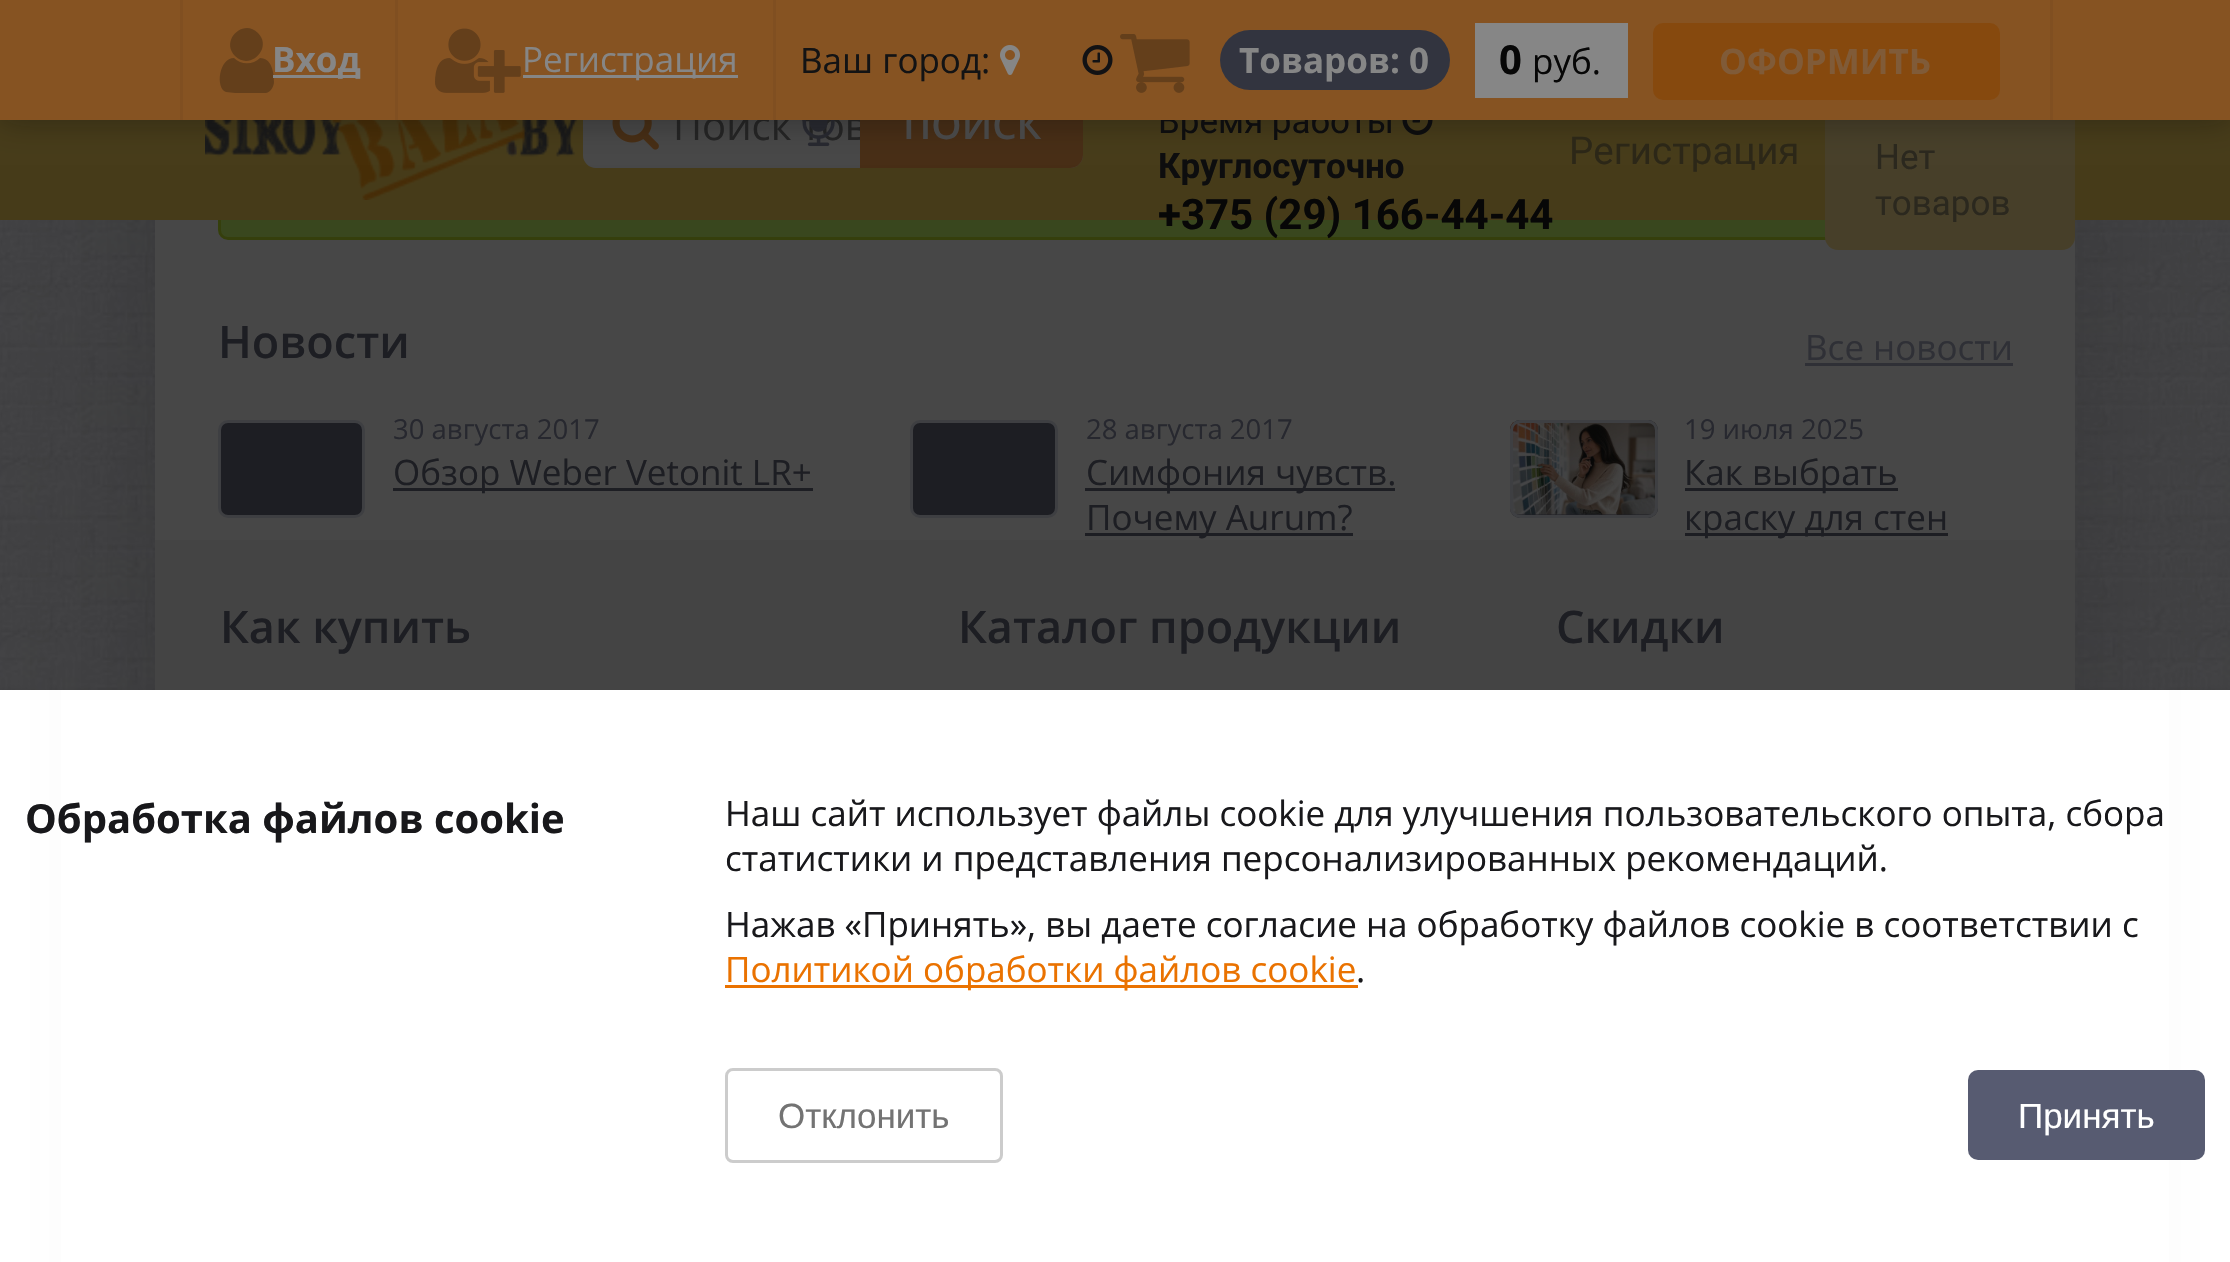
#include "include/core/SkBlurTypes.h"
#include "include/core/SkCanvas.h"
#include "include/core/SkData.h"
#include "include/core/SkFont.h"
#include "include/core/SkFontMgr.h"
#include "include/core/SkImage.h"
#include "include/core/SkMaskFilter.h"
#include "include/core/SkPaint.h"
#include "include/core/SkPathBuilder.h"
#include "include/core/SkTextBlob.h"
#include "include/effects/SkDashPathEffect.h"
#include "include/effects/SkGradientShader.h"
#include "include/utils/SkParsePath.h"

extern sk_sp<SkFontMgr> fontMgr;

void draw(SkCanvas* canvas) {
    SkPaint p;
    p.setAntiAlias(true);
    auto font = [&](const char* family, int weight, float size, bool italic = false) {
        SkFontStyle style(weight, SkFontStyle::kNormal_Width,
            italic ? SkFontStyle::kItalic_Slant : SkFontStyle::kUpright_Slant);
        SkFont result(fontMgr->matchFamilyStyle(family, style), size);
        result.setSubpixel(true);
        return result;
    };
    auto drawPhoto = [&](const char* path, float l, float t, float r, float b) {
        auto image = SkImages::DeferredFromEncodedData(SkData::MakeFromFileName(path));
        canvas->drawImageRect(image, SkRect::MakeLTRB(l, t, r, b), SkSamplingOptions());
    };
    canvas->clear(0xFFFFFFFF);
    drawPhoto("media/1.png", 0, 220, 2230, 690);
    p.setColor(0x26070707);
    p.setMaskFilter(SkMaskFilter::MakeBlur(kNormal_SkBlurStyle, 64));
    canvas->drawRect(SkRect::MakeLTRB(155, -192, 2075, 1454), p);
    p.setMaskFilter(nullptr);
    p.setColor(0xFF444444);
    canvas->drawRect(SkRect::MakeLTRB(155, 540, 2075, 690), p);
    p.setColor(0xFF474747);
    canvas->drawRect(SkRect::MakeLTRB(155, 220, 2075, 540), p);
    p.setColor(0xFF39471E);
    canvas->drawRoundRect(SkRect::MakeLTRB(219.5f, 166.5f, 2011.5f, 238.5f), 8.5f, 8.5f, p);
    p.setStyle(SkPaint::kStroke_Style);
    p.setStrokeWidth(3);
    p.setColor(0xFF353F0C);
    canvas->drawRoundRect(SkRect::MakeLTRB(219.5f, 166.5f, 2011.5f, 238.5f), 8.5f, 8.5f, p);
    p.setStyle(SkPaint::kFill_Style);
    p.setColor(0xFF463B19);
    canvas->drawRect(SkRect::MakeLTRB(0, 120, 2230, 220), p);
    drawPhoto("media/7.png", 205, 120, 578, 200);
    p.setColor(0xFF474747);
    canvas->drawRoundRect(SkRect::MakeLTRB(584.5f, 86.5f, 1081.5f, 166.5f), 11.5f, 11.5f, p);
    p.setStyle(SkPaint::kStroke_Style);
    canvas->drawRoundRect(SkRect::MakeLTRB(584.5f, 86.5f, 1081.5f, 166.5f), 11.5f, 11.5f, p);
    drawPhoto("media/8.png", 612, 120, 659, 150);
    auto font1 = font("Open Sans", 400, 40);
    p.setStyle(SkPaint::kFill_Style);
    p.setColor(0xFF242424);
    canvas->drawString("Поиск тов", 673, 140, font1, p);
    p.setColor(0xFF472D15);
    canvas->drawPath(SkPathBuilder().moveTo(862.5f, 87.5f).lineTo(1070, 87.5f).cubicTo(1076, 87.5f, 1080.5f, 92, 1080.5f, 98).lineTo(1080.5f, 155).cubicTo(1080.5f, 161, 1076, 165.5f, 1070, 165.5f).lineTo(862.5f, 165.5f).close().detach(), p);
    p.setStyle(SkPaint::kStroke_Style);
    p.setStrokeWidth(5);
    canvas->drawPath(SkPathBuilder().moveTo(862.5f, 87.5f).lineTo(1070, 87.5f).cubicTo(1076, 87.5f, 1080.5f, 92, 1080.5f, 98).lineTo(1080.5f, 155).cubicTo(1080.5f, 161, 1076, 165.5f, 1070, 165.5f).lineTo(862.5f, 165.5f).close().detach(), p);
    drawPhoto("media/9.png", 802, 120, 835, 147);
    drawPhoto("media/10.png", 1402, 120, 1433, 135);
    p.setStyle(SkPaint::kFill_Style);
    p.setColor(0xFF473F29);
    canvas->drawRoundRect(SkRect::MakeLTRB(1825, 0, 2075, 250), 13, 13, p);
    p.setColor(0x5C070707);
    p.setMaskFilter(SkMaskFilter::MakeBlur(kNormal_SkBlurStyle, 15));
    canvas->drawRect(SkRect::MakeLTRB(0, 0, 2230, 120), p);
    p.setMaskFilter(nullptr);
    auto font2 = font("Open Sans", 600, 38.5f);
    p.setColor(0xFF474747);
    canvas->drawString("ПОИСК", 903, 139, font2, p);
    auto font3 = font("Roboto", 400, 35);
    p.setColor(0xFF0D0D0E);
    canvas->drawString("Время работы", 1158, 133, font3, p);
    {
        const struct { float l, t, r, b; SkColor color; } items[] = {
            {0, 0, 2230, 120, 0xFF865322},
            {2050, 0, 2053, 120, 0xFF804F21},
            {180, 0, 183, 120, 0xFF804F21},
            {395, 0, 398, 120, 0xFF804F21},
        };
        for (auto [l, t, r, b, color] : items) {
            p.setColor(color);
            canvas->drawRect(SkRect::MakeLTRB(l, t, r, b), p);
        }
    }
    p.setColor(0xFF643F1B);
    canvas->drawPath(SkPathBuilder().moveTo(274, 82).cubicTo(274, 86, 271, 92, 266, 93).lineTo(235, 93).lineTo(226, 92).cubicTo(215, 88, 219, 58, 234, 58).cubicTo(241, 65, 253, 65, 260, 58).cubicTo(272, 58, 274, 73, 274, 82).close().moveTo(258, 33).cubicTo(273, 48, 250, 71, 235, 56).cubicTo(220, 41, 243, 18, 258, 33).close().detach(), p);
    p.setColor(0xFF868686);
    canvas->drawRect(SkRect::MakeLTRB(273, 75, 360, 78), p);
    auto font4 = font("Open Sans", 700, 35);
    canvas->drawString("Вход", 272, 72, font4, p);
    p.setColor(0xFF804F21);
    canvas->drawRect(SkRect::MakeLTRB(773, 0, 776, 120), p);
    drawPhoto("media/2.png", 435, 28, 521, 93);
    p.setColor(0xFF868686);
    canvas->drawRect(SkRect::MakeLTRB(523, 75, 738, 78), p);
    auto font5 = font("Open Sans", 400, 35);
    canvas->drawString("Регистрация", 522, 72, font5, p);
    p.setColor(0xFF131314);
    canvas->drawString("Ваш город:", 800, 73, font5, p);
    drawPhoto("media/3.png", 1000, 45, 1020, 75);
    drawPhoto("media/4.png", 1082, 45, 1113, 75);
    drawPhoto("media/5.png", 1120, 34, 1190, 93);
    p.setColor(0xFF32343F);
    canvas->drawRoundRect(SkRect::MakeLTRB(1220, 30, 1450, 90), 30, 30, p);
    p.setColor(0xFF868686);
    canvas->drawString("Товаров: 0", 1239, 73, font4, p);
    canvas->drawRect(SkRect::MakeLTRB(1475, 23, 1628, 98), p);
    auto font6 = font("Open Sans", 700, 40);
    p.setColor(0xFF070707);
    canvas->drawString("0", 1499, 74, font6, p);
    canvas->drawString("руб.", 1532, 74, font5, p);
    p.setColor(0xFF86490E);
    canvas->drawRoundRect(SkRect::MakeLTRB(1653, 23, 2000, 100), 10, 10, p);
    p.setColor(0xFF805B38);
    canvas->drawString("ОФОРМИТЬ", 1719, 74, font4, p);
    auto font7 = font("Open Sans", 600, 45);
    p.setColor(0xFF1D1E23);
    {
        const struct { const char* s; float x, y; } items[] = {
            {"Как купить", 220, 643},
            {"Каталог продукции", 958, 643},
            {"Скидки", 1556, 643},
            {"Новости", 218, 358},
        };
        for (auto [s, x, y] : items) {
            canvas->drawString(s, x, y, font7, p);
        }
    }
    p.setColor(0xFF2F3036);
    canvas->drawString("Все новости", 1805, 360, font5, p);
    canvas->drawRect(SkRect::MakeLTRB(1805, 363, 2013, 366), p);
    p.setColor(0xFF1D1E23);
    canvas->drawRoundRect(SkRect::MakeLTRB(219.5f, 421.5f, 363.5f, 516.5f), 8.5f, 8.5f, p);
    p.setStyle(SkPaint::kStroke_Style);
    p.setStrokeWidth(3);
    p.setColor(0xFF3E3F42);
    canvas->drawRoundRect(SkRect::MakeLTRB(219.5f, 421.5f, 363.5f, 516.5f), 8.5f, 8.5f, p);
    auto font8 = font("Open Sans", 400, 27.5f);
    p.setStyle(SkPaint::kFill_Style);
    p.setColor(0xFF27282F);
    canvas->drawString("30 августа 2017", 393, 439, font8, p);
    p.setColor(0xFF1D1E23);
    canvas->drawRect(SkRect::MakeLTRB(393, 488, 813, 491), p);
    canvas->drawString("Обзор Weber Vetonit LR+", 393, 485, font5, p);
    canvas->drawRoundRect(SkRect::MakeLTRB(911.5f, 421.5f, 1056.5f, 516.5f), 8.5f, 8.5f, p);
    p.setStyle(SkPaint::kStroke_Style);
    p.setColor(0xFF3E3F42);
    canvas->drawRoundRect(SkRect::MakeLTRB(911.5f, 421.5f, 1056.5f, 516.5f), 8.5f, 8.5f, p);
    p.setStyle(SkPaint::kFill_Style);
    p.setColor(0xFF27282F);
    canvas->drawString("28 августа 2017", 1086, 439, font8, p);
    p.setColor(0xFF1D1E23);
    canvas->drawRect(SkRect::MakeLTRB(1085, 488, 1395, 491), p);
    canvas->drawString("Симфония чувств.", 1086, 485, font5, p);
    canvas->drawRect(SkRect::MakeLTRB(1085, 533, 1353, 536), p);
    canvas->drawString("Почему Aurum?", 1086, 530, font5, p);
    canvas->drawRoundRect(SkRect::MakeLTRB(1510, 420, 1658, 518), 10, 10, p);
    drawPhoto("media/6.png", 1510, 422, 1658, 515);
    p.setStyle(SkPaint::kStroke_Style);
    p.setColor(0xFF3E3F42);
    canvas->drawRoundRect(SkRect::MakeLTRB(1511.5f, 421.5f, 1656.5f, 516.5f), 8.5f, 8.5f, p);
    p.setStyle(SkPaint::kFill_Style);
    p.setColor(0xFF27282F);
    canvas->drawString("19 июля 2025", 1684, 439, font8, p);
    p.setColor(0xFF1D1E23);
    canvas->drawRect(SkRect::MakeLTRB(1685, 488, 1898, 491), p);
    canvas->drawString("Как выбрать", 1684, 485, font5, p);
    canvas->drawRect(SkRect::MakeLTRB(1685, 533, 1948, 536), p);
    canvas->drawString("краску для стен", 1684, 530, font5, p);
    auto font9 = font("Roboto", 700, 35);
    p.setColor(0xFF0D0D0E);
    canvas->drawString("Круглосуточно", 1158, 178, font9, p);
    auto font10 = font("Roboto", 700, 42);
    p.setColor(0xFF070707);
    canvas->drawString("+375 (29) 166-44-44", 1158, 229, font10, p);
    auto font11 = font("Roboto", 400, 38.5f);
    p.setColor(0xFF2C2717);
    canvas->drawString("Регистрация", 1569, 164, font11, p);
    p.setColor(0xFF2B281E);
    canvas->drawString("Нет", 1875, 169, font3, p);
    canvas->drawString("товаров", 1875, 215, font3, p);
    p.setColor(0xFFFFFFFF);
    canvas->drawRect(SkRect::MakeLTRB(61, 690, 2169, 1262), p);
    p.setColor(0xFF18181B);
    canvas->drawString("Обработка файлов cookie", 25, 833, font6, p);
    {
        const struct { const char* s; float x, y; } items[] = {
            {"Наш сайт использует файлы cookie для улучшения пользовательского опыта, сбора", 725, 826},
            {"статистики и представления персонализированных рекомендаций.", 725, 871},
            {"Нажав «Принять», вы даете согласие на обработку файлов cookie в соответствии с", 725, 937},
        };
        for (auto [s, x, y] : items) {
            canvas->drawString(s, x, y, font5, p);
        }
    }
    p.setColor(0xFFEA7200);
    canvas->drawRect(SkRect::MakeLTRB(725, 985, 1358, 988), p);
    canvas->drawString("Политикой обработки файлов cookie", 725, 982, font5, p);
    p.setColor(0xFF18181B);
    canvas->drawString(".", 1356, 982, font5, p);
    p.setStyle(SkPaint::kStroke_Style);
    p.setColor(0xFFCCCCCC);
    canvas->drawRoundRect(SkRect::MakeLTRB(726.5f, 1069.5f, 1001.5f, 1161.5f), 6.5f, 6.5f, p);
    auto font12 = font("Liberation Sans", 400, 35);
    p.setStyle(SkPaint::kFill_Style);
    p.setColor(0xFF737373);
    canvas->drawString("Отклонить", 778, 1128, font12, p);
    p.setColor(0xFF575B71);
    canvas->drawRoundRect(SkRect::MakeLTRB(1968, 1070, 2205, 1160), 10, 10, p);
    p.setColor(0xFFFFFFFF);
    canvas->drawString("Принять", 2018, 1128, font12, p);
}
